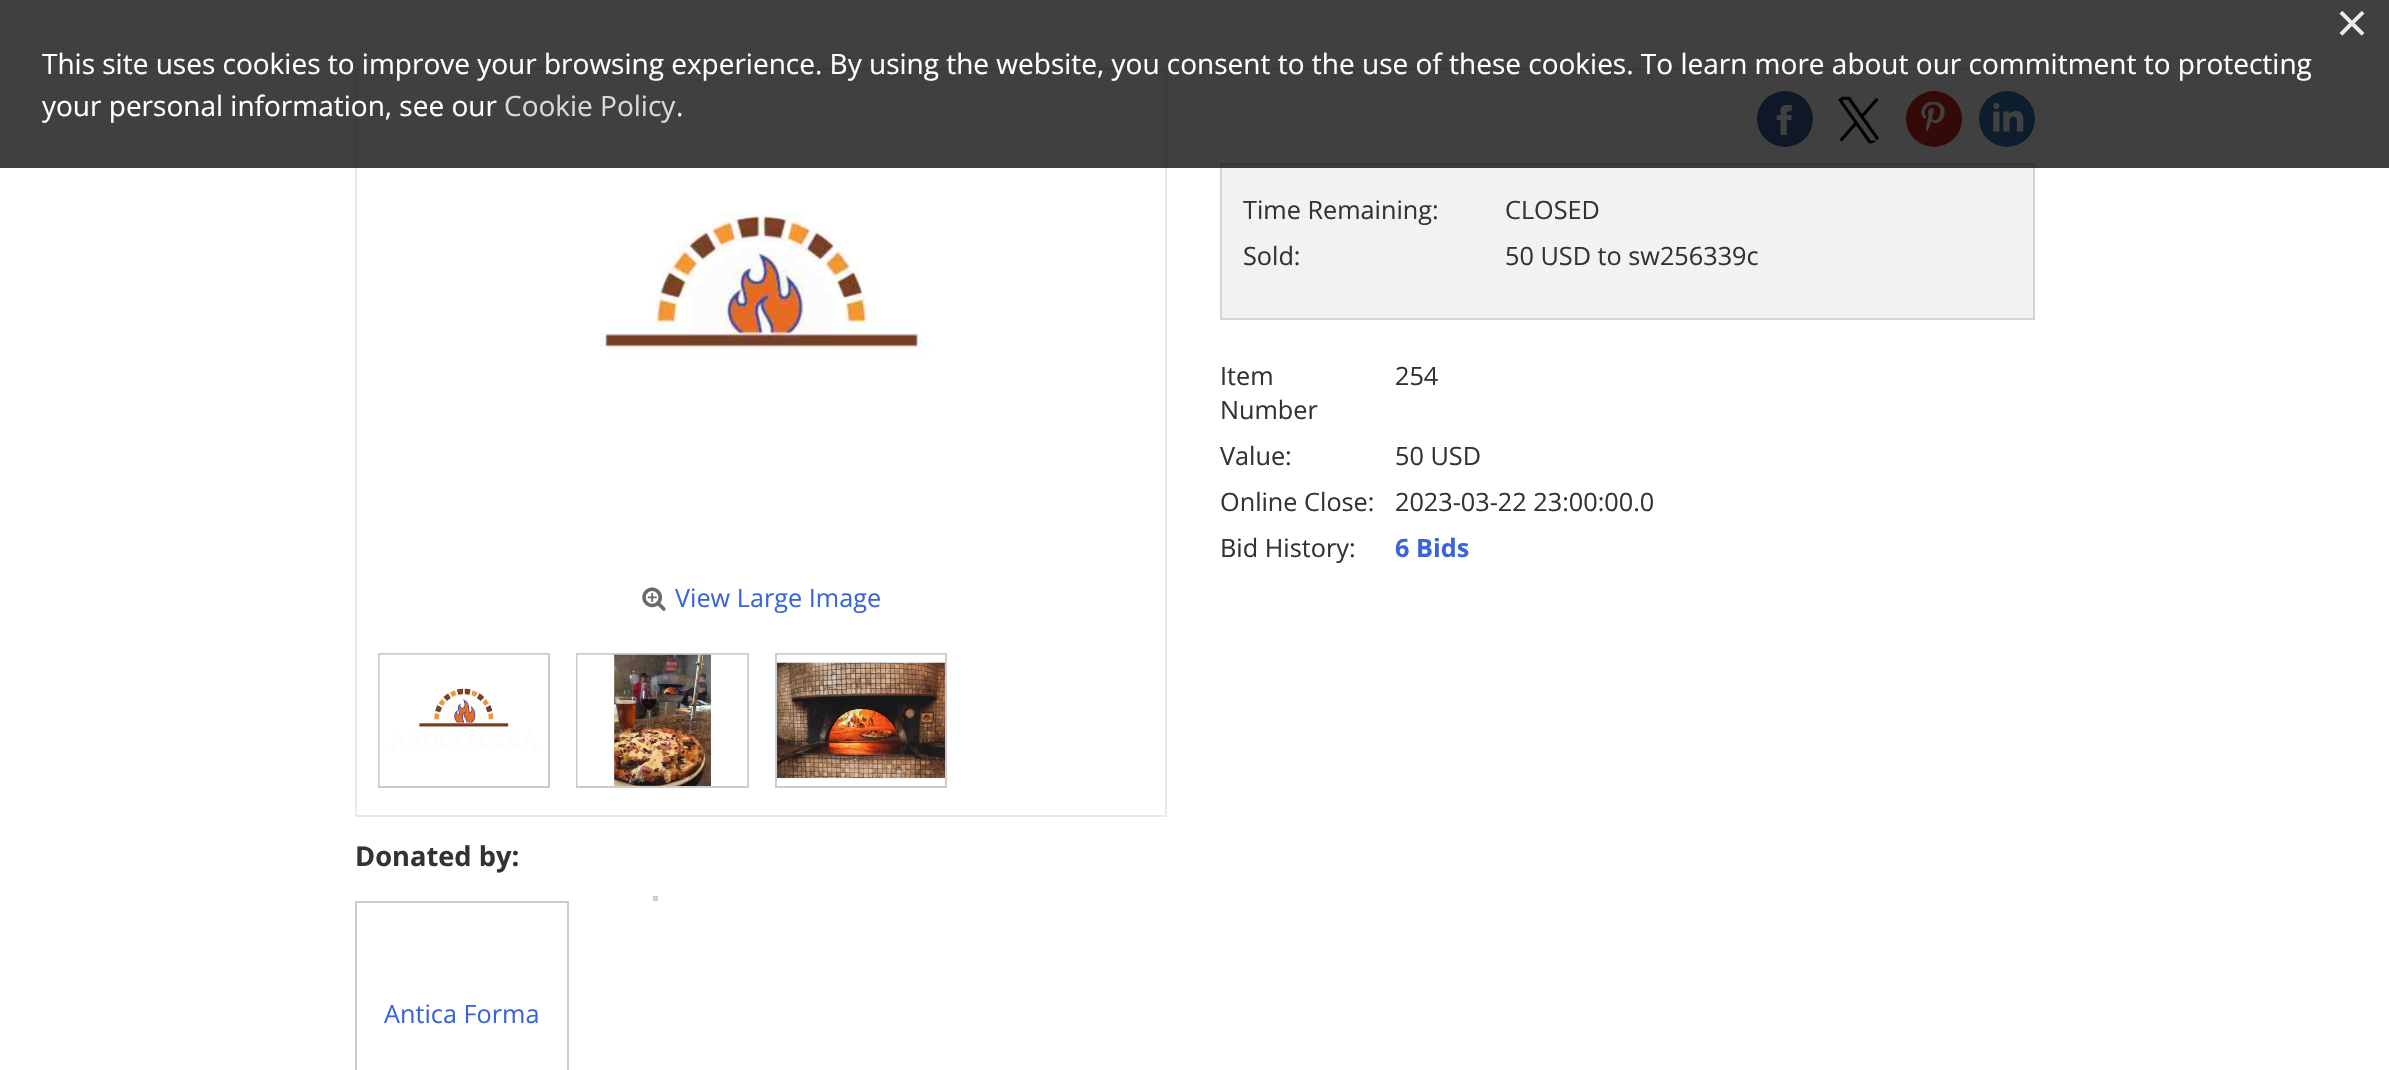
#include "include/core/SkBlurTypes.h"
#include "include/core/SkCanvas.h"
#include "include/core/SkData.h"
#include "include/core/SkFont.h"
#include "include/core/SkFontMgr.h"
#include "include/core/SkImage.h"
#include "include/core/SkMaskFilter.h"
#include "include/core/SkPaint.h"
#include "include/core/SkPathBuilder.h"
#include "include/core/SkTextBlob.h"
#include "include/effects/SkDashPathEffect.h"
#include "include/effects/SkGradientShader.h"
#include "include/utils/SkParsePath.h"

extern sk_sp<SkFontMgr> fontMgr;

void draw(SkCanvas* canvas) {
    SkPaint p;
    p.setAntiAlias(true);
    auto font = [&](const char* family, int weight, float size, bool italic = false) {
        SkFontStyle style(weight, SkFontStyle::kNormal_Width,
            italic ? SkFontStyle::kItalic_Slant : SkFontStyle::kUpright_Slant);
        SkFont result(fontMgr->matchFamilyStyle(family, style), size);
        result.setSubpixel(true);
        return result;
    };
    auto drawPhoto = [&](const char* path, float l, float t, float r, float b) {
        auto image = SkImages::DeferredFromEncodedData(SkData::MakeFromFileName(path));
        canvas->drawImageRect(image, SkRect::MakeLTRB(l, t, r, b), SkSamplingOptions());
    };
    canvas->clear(0xFFFFFFFF);
    p.setColor(0xFFE9E9E9);
    canvas->drawRect(SkRect::MakeLTRB(1220, 68, 2035, 70), p);
    p.setColor(0xFF3E5B98);
    canvas->drawCircle(1785, 119, 28, p);
    drawPhoto("media/1.png", 1776, 105, 1792, 135);
    drawPhoto("media/2.png", 1838, 96, 1879, 144);
    p.setColor(0xFFC92619);
    canvas->drawCircle(1934, 119, 28, p);
    drawPhoto("media/3.png", 1921, 102, 1945, 132);
    p.setColor(0xFF3371B7);
    canvas->drawCircle(2007, 119, 28, p);
    drawPhoto("media/4.png", 1993, 102, 2024, 132);
    p.setColor(0xFFF2F2F2);
    canvas->drawRect(SkRect::MakeLTRB(1221, 164, 2034, 319), p);
    p.setStyle(SkPaint::kStroke_Style);
    p.setStrokeWidth(2);
    p.setColor(0xFFD4D4D4);
    canvas->drawRect(SkRect::MakeLTRB(1221, 164, 2034, 319), p);
    p.setColor(0xFFE9E9E9);
    canvas->drawRect(SkRect::MakeLTRB(356, 69, 1166, 816), p);
    p.setStyle(SkPaint::kFill_Style);
    p.setColor(0xBF000000);
    canvas->drawRect(SkRect::MakeLTRB(0, 0, 2389, 168), p);
    auto font1 = font("Open Sans", 400, 56);
    p.setColor(0xFFECECEC);
    canvas->drawString("×", 2336, 43, font1, p);
    auto font2 = font("Open Sans", 400, 28);
    p.setColor(0xFFFFFFFF);
    canvas->drawString("This site uses cookies to improve your browsing experience. By using the website, you consent to the use of these cookies. To learn more about our commitment to protecting", 42, 74, font2, p);
    canvas->drawString("your personal information, see our", 42, 116, font2, p);
    p.setColor(0xFFD9D9D9);
    canvas->drawString("Cookie Policy", 504, 116, font2, p);
    p.setColor(0xFFFFFFFF);
    canvas->drawString(".", 676, 116, font2, p);
    auto font3 = font("Open Sans", 400, 25.25f);
    p.setColor(0xFF333333);
    {
        const struct { const char* s; float x, y; } items[] = {
            {"Time Remaining:", 1243, 219},
            {"CLOSED", 1505, 219},
            {"Sold:", 1243, 265},
            {"50 USD to sw256339c", 1505, 265},
            {"Item", 1220, 385},
            {"Number", 1220, 419},
            {"254", 1395, 385},
            {"Value:", 1220, 465},
            {"50 USD", 1395, 465},
            {"Online Close:", 1220, 511},
            {"2023-03-22 23:00:00.0", 1395, 511},
            {"Bid History:", 1220, 557},
        };
        for (auto [s, x, y] : items) {
            canvas->drawString(s, x, y, font3, p);
        }
    }
    auto font4 = font("Open Sans", 700, 25.25f);
    p.setColor(0xFF3B64DA);
    canvas->drawString("6 Bids", 1395, 557, font4, p);
    drawPhoto("media/5.png", 600, 213, 929, 354);
    drawPhoto("media/6.png", 642, 587, 666, 611);
    canvas->drawString("View Large Image", 675, 607, font3, p);
    p.setStyle(SkPaint::kStroke_Style);
    p.setColor(0xFFCCCCCC);
    canvas->drawRect(SkRect::MakeLTRB(379, 654, 549, 787), p);
    drawPhoto("media/7.png", 379, 654, 548, 786);
    canvas->drawRect(SkRect::MakeLTRB(577, 654, 748, 787), p);
    drawPhoto("media/8.png", 577, 654, 748, 786);
    canvas->drawRect(SkRect::MakeLTRB(776, 654, 946, 787), p);
    drawPhoto("media/9.png", 777, 654, 945, 779);
    auto font5 = font("Open Sans", 700, 27.25f);
    p.setStyle(SkPaint::kFill_Style);
    p.setColor(0xFF333333);
    canvas->drawString("Donated by:", 355, 866, font5, p);
    p.setStyle(SkPaint::kStroke_Style);
    p.setColor(0xFFCCCCCC);
    canvas->drawRect(SkRect::MakeLTRB(654, 897, 657, 900), p);
    canvas->drawRect(SkRect::MakeLTRB(356, 902, 568, 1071), p);
    p.setStyle(SkPaint::kFill_Style);
    p.setColor(0xFF3B64DA);
    canvas->drawString("Antica Forma", 384, 1023, font3, p);
}
